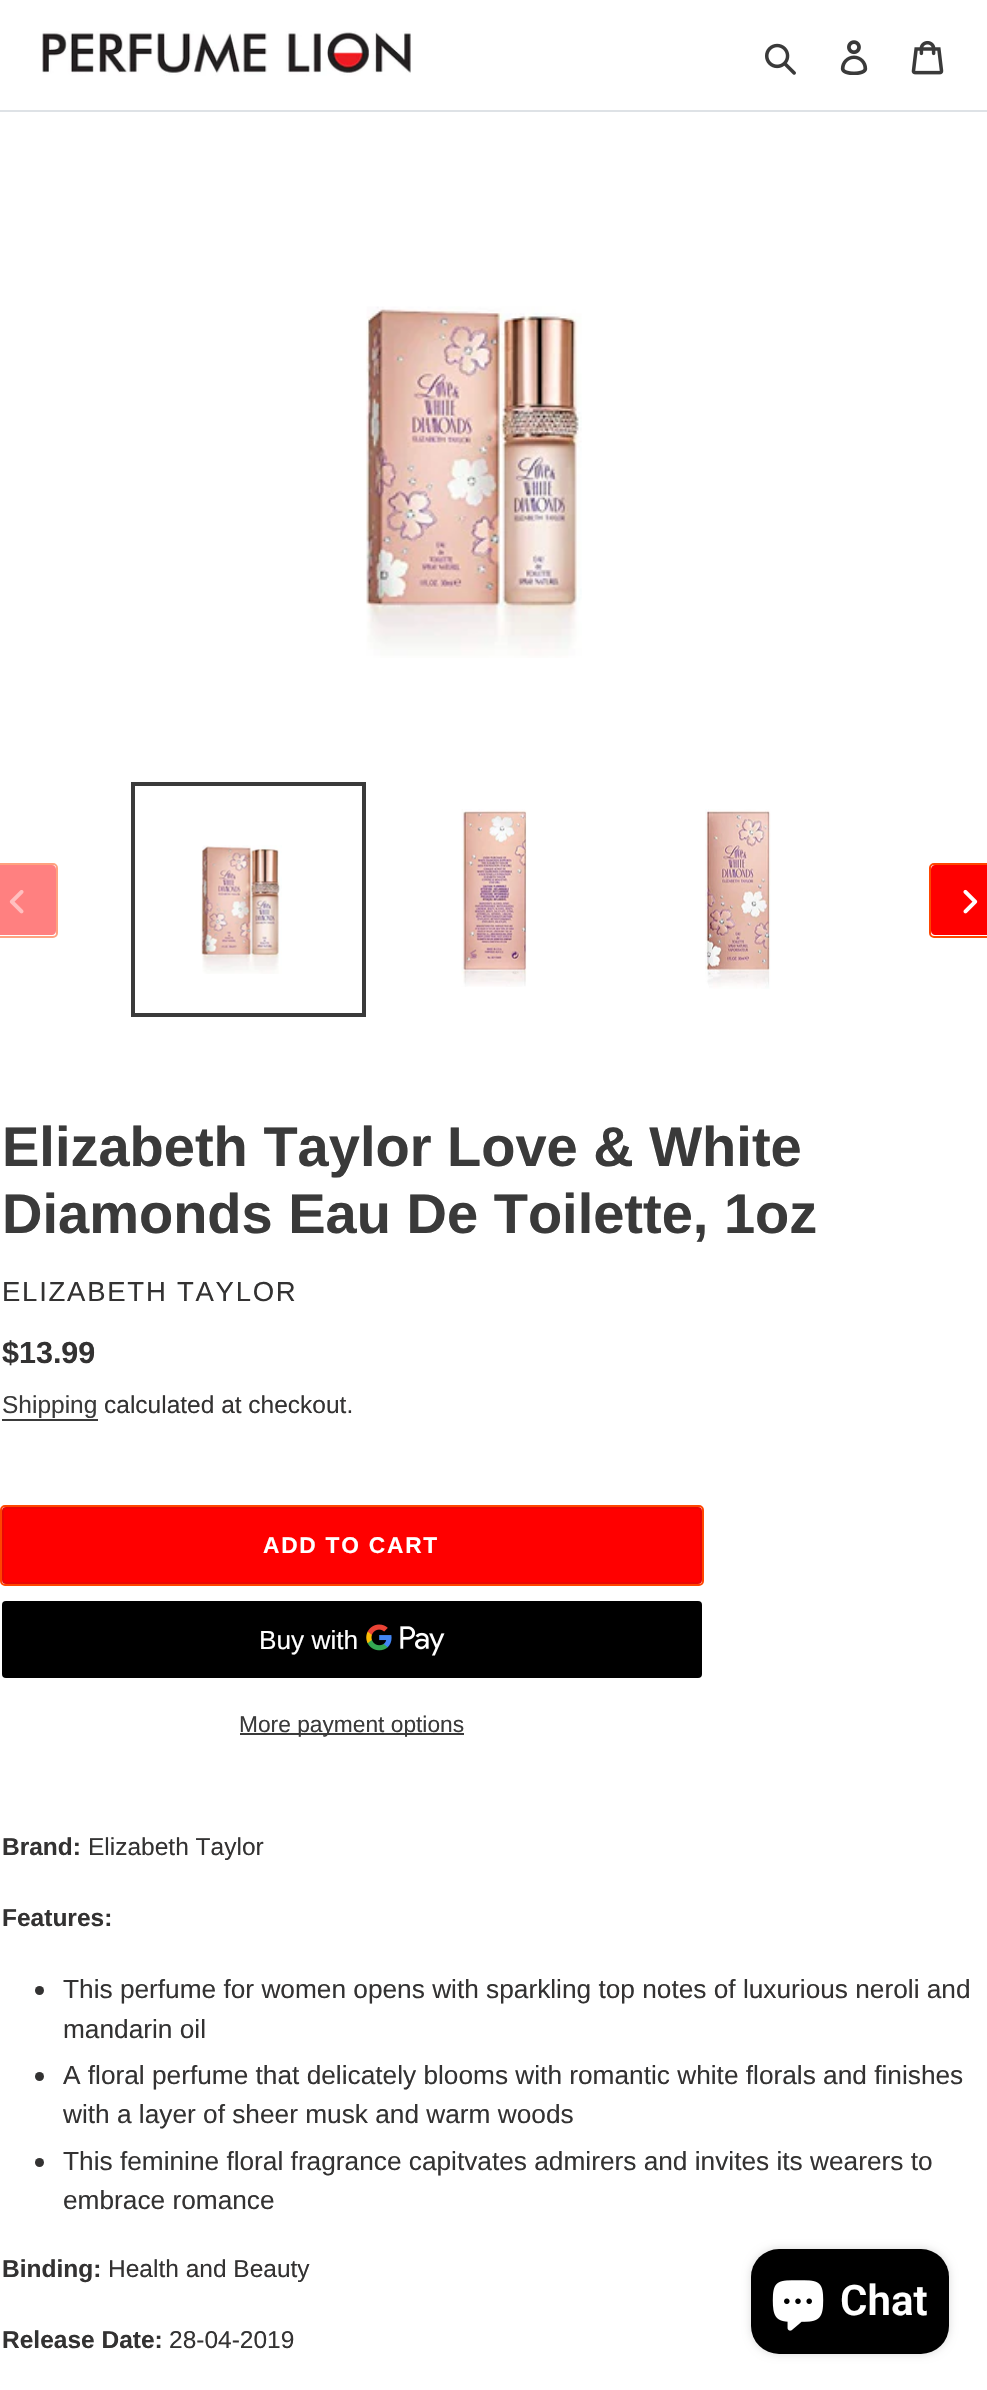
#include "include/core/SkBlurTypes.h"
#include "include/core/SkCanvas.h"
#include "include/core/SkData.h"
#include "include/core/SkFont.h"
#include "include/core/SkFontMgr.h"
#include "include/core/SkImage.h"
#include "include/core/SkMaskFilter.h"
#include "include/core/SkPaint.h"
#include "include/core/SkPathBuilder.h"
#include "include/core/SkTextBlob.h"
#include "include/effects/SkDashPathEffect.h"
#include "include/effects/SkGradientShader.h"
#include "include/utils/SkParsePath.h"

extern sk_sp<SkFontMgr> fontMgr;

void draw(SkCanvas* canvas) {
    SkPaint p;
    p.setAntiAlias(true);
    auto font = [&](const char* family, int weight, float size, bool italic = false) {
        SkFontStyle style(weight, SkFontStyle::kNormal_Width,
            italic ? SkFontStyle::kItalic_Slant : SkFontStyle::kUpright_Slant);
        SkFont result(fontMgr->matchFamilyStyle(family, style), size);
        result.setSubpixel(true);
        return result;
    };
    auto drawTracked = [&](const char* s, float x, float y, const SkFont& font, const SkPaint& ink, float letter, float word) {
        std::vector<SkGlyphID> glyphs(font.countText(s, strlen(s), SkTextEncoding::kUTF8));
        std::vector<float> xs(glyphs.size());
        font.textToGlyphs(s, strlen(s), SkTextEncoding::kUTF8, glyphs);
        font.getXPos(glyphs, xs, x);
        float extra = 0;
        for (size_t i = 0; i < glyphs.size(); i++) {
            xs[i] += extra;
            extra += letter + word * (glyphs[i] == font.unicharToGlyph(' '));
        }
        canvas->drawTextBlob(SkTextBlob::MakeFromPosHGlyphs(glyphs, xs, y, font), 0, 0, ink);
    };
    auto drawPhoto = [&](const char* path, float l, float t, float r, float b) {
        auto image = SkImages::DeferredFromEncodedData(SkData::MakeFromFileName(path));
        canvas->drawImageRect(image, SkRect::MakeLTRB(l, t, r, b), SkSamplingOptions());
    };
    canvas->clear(0xFFFFFFFF);
    p.setColor(0xFFDEE2E6);
    canvas->drawRect(SkRect::MakeLTRB(0, 110, 987, 112), p);
    drawPhoto("media/1.png", 42, 31, 411, 76);
    drawPhoto("media/2.png", 765, 43, 796, 75);
    drawPhoto("media/3.png", 840, 40, 868, 75);
    drawPhoto("media/4.png", 911, 40, 944, 75);
    drawPhoto("media/5.png", 366, 306, 582, 658);
    p.setStyle(SkPaint::kStroke_Style);
    p.setStrokeWidth(2);
    p.setColor(0xFFFFA280);
    canvas->drawRoundRect(SkRect::MakeLTRB(-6, 864, 57, 937), 4, 4, p);
    p.setStyle(SkPaint::kFill_Style);
    p.setColor(0xFFFF8080);
    canvas->drawPath(SkPathBuilder().moveTo(0, 865).lineTo(52, 865).cubicTo(54, 865, 56, 867, 56, 869).lineTo(56, 931).cubicTo(56, 933, 54, 935, 52, 935).lineTo(0, 935).close().detach(), p);
    drawPhoto("media/6.png", 9, 890, 24, 914);
    p.setStyle(SkPaint::kStroke_Style);
    p.setStrokeWidth(4);
    p.setColor(0xFF3A3A3A);
    canvas->drawRect(SkRect::MakeLTRB(133, 784, 364, 1015), p);
    drawPhoto("media/7.png", 200, 845, 282, 974);
    drawPhoto("media/8.png", 461, 809, 527, 987);
    drawPhoto("media/9.png", 705, 809, 771, 989);
    p.setStrokeWidth(2);
    p.setColor(0xFFFF4500);
    canvas->drawRoundRect(SkRect::MakeLTRB(930, 864, 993, 937), 4, 4, p);
    p.setStyle(SkPaint::kFill_Style);
    p.setColor(0xFFFF0000);
    canvas->drawPath(SkPathBuilder().moveTo(935, 865).lineTo(987, 865).lineTo(987, 935).lineTo(935, 935).cubicTo(933, 935, 931, 933, 931, 931).lineTo(931, 869).cubicTo(931, 867, 933, 865, 935, 865).close().detach(), p);
    drawPhoto("media/10.png", 963, 889, 978, 914);
    auto font1 = font("Liberation Sans", 700, 56);
    p.setColor(0xFF3A3A3A);
    canvas->drawString("Elizabeth Taylor Love & White", 2, 1166, font1, p);
    canvas->drawString("Diamonds Eau De Toilette, 1oz", 2, 1233, font1, p);
    auto font2 = font("Liberation Sans", 400, 27.5f);
    p.setColor(0xFF333232);
    drawTracked("ELIZABETH TAYLOR", 2, 1301, font2, p, 1.75f, 0);
    auto font3 = font("Liberation Sans", 700, 30.5f);
    canvas->drawString("$13.99", 2, 1363, font3, p);
    auto font4 = font("Liberation Sans", 400, 24.5f);
    p.setColor(0xFF3A3A3A);
    canvas->drawString("Shipping", 2, 1413, font4, p);
    canvas->drawRect(SkRect::MakeLTRB(2, 1419, 98, 1421), p);
    p.setColor(0xFF333232);
    canvas->drawString("calculated at checkout.", 104, 1413, font4, p);
    p.setStyle(SkPaint::kStroke_Style);
    p.setColor(0xFFFF4500);
    canvas->drawRoundRect(SkRect::MakeLTRB(1, 1506, 703, 1585), 4, 4, p);
    p.setStyle(SkPaint::kFill_Style);
    p.setColor(0xFFFF0000);
    canvas->drawRoundRect(SkRect::MakeLTRB(3, 1508, 701, 1583), 3, 3, p);
    p.setStyle(SkPaint::kStroke_Style);
    p.setColor(0xFFEA0606);
    canvas->drawRoundRect(SkRect::MakeLTRB(3, 1508, 701, 1583), 3, 3, p);
    auto font5 = font("Liberation Sans", 700, 22.75f);
    p.setStyle(SkPaint::kFill_Style);
    p.setColor(0xFFFFFFFF);
    drawTracked("ADD TO CART", 263, 1553, font5, p, 1.75f, 0);
    p.setColor(0xFF000000);
    canvas->drawRoundRect(SkRect::MakeLTRB(2, 1601, 702, 1678), 4, 4, p);
    auto font6 = font("Liberation Sans", 400, 26.25f);
    p.setColor(0xFFFFFFFF);
    canvas->drawString("Buy with", 259, 1649, font6, p);
    drawPhoto("media/11.png", 366, 1624, 445, 1656);
    p.setColor(0xFF3A3A3A);
    canvas->drawRect(SkRect::MakeLTRB(240, 1733, 464, 1735), p);
    auto font7 = font("Liberation Sans", 400, 22.75f);
    canvas->drawString("More payment options", 239, 1732, font7, p);
    auto font8 = font("Liberation Sans", 700, 24.5f);
    p.setColor(0xFF333232);
    canvas->drawString("Brand:", 2, 1855, font8, p);
    canvas->drawString("Elizabeth Taylor", 88, 1855, font4, p);
    canvas->drawString("Features:", 2, 1926, font8, p);
    canvas->drawCircle(39.5f, 1990.5f, 4.5f, p);
    canvas->drawString("This perfume for women opens with sparkling top notes of luxurious neroli and", 63, 1998, font6, p);
    canvas->drawString("mandarin oil", 63, 2038, font6, p);
    canvas->drawCircle(39.5f, 2076.5f, 4.5f, p);
    canvas->drawString("A floral perfume that delicately blooms with romantic white florals and finishes", 63, 2084, font6, p);
    canvas->drawString("with a layer of sheer musk and warm woods", 63, 2123, font6, p);
    canvas->drawCircle(39.5f, 2162.5f, 4.5f, p);
    canvas->drawString("This feminine floral fragrance capitvates admirers and invites its wearers to", 63, 2170, font6, p);
    canvas->drawString("embrace romance", 63, 2209, font6, p);
    canvas->drawString("Binding:", 2, 2277, font8, p);
    canvas->drawString("Health and Beauty", 108, 2277, font4, p);
    canvas->drawString("Release Date:", 2, 2348, font8, p);
    canvas->drawString("28-04-2019", 169, 2348, font4, p);
    p.setColor(0x26000000);
    p.setMaskFilter(SkMaskFilter::MakeBlur(kNormal_SkBlurStyle, 4.5f));
    canvas->drawRoundRect(SkRect::MakeLTRB(751, 2249, 949, 2354), 28, 28, p);
    p.setMaskFilter(nullptr);
    p.setColor(0xFF000000);
    canvas->drawRoundRect(SkRect::MakeLTRB(751, 2249, 949, 2354), 28, 28, p);
    drawPhoto("media/12.png", 772, 2280, 824, 2331);
    auto font9 = font("Roboto", 600, 42);
    p.setColor(0xFFFFFFFF);
    canvas->drawString("Chat", 840, 2315, font9, p);
}
